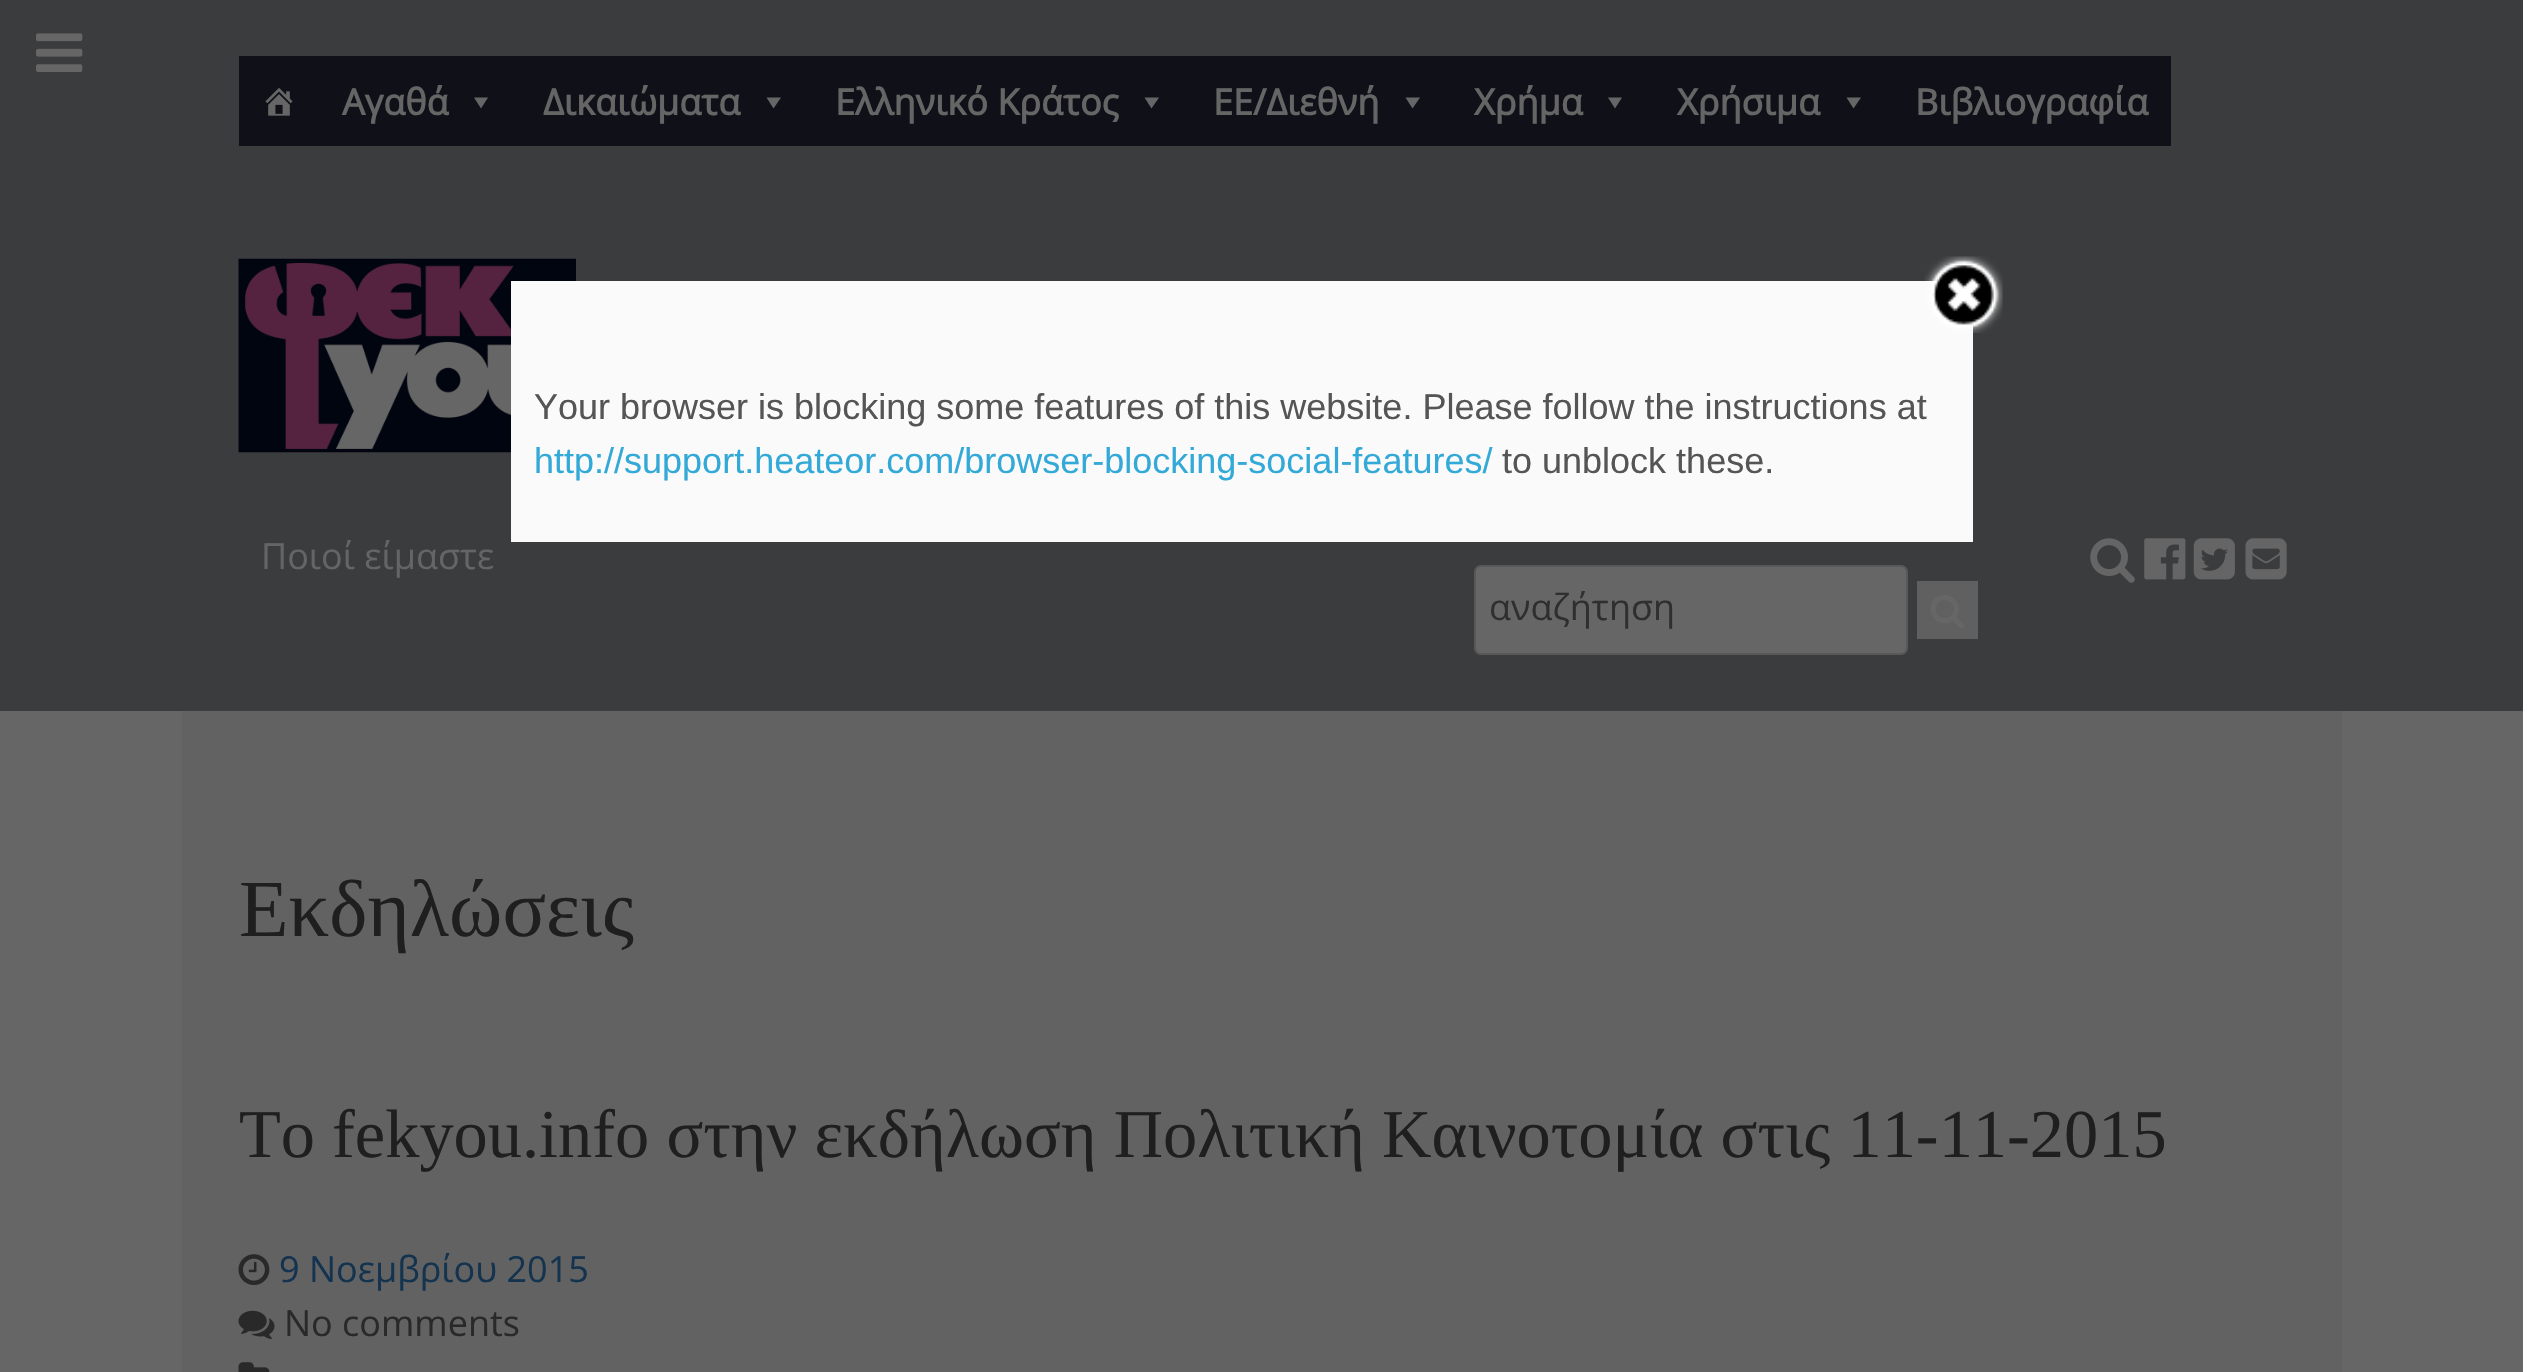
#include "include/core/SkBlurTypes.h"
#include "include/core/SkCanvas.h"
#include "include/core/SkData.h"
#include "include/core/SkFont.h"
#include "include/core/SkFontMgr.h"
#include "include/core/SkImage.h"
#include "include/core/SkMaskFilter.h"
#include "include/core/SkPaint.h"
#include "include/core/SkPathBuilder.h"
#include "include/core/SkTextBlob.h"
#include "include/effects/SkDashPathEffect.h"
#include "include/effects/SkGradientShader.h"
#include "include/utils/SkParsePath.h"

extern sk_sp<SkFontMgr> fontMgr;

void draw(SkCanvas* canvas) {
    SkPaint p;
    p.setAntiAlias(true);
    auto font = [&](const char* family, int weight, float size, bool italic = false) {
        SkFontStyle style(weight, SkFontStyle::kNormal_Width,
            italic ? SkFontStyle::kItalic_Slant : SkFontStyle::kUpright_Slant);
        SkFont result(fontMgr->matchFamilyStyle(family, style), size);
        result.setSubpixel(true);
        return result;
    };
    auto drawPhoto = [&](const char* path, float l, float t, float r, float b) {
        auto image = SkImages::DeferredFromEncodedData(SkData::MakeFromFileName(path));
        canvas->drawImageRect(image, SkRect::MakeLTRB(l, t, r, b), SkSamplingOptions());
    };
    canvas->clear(0xFF666666);
    p.setColor(0xFF3A3C3E);
    canvas->drawRect(SkRect::MakeLTRB(0, 0, 2523, 711), p);
    drawPhoto("media/1.png", 36, 33, 83, 72);
    p.setColor(0xFF101018);
    canvas->drawRect(SkRect::MakeLTRB(239, 56, 2171, 146), p);
    drawPhoto("media/2.png", 265, 87, 293, 116);
    auto font1 = font("Open Sans", 700, 36);
    p.setColor(0xFF656565);
    canvas->drawString("Αγαθά", 342, 115, font1, p);
    p.setColor(0xFF666666);
    canvas->drawPath(SkPathBuilder().moveTo(488, 97.5f).lineTo(481, 108.5f).lineTo(474, 97.5f).close().detach(), p);
    p.setColor(0xFF656565);
    canvas->drawString("Δικαιώματα", 543, 115, font1, p);
    p.setColor(0xFF666666);
    canvas->drawPath(SkPathBuilder().moveTo(781, 97.5f).lineTo(773.5f, 108.5f).lineTo(766.5f, 97.5f).close().detach(), p);
    p.setColor(0xFF656565);
    canvas->drawString("Ελληνικό Κράτος", 835, 115, font1, p);
    p.setColor(0xFF666666);
    canvas->drawPath(SkPathBuilder().moveTo(1159, 97.5f).lineTo(1151.5f, 108.5f).lineTo(1144.5f, 97.5f).close().detach(), p);
    p.setColor(0xFF656565);
    canvas->drawString("ΕΕ/Διεθνή", 1213, 115, font1, p);
    p.setColor(0xFF666666);
    canvas->drawPath(SkPathBuilder().moveTo(1420, 97.5f).lineTo(1412.5f, 108.5f).lineTo(1405.5f, 97.5f).close().detach(), p);
    p.setColor(0xFF656565);
    canvas->drawString("Χρήμα", 1474, 115, font1, p);
    p.setColor(0xFF666666);
    canvas->drawPath(SkPathBuilder().moveTo(1622, 97.5f).lineTo(1615, 108.5f).lineTo(1608, 97.5f).close().detach(), p);
    p.setColor(0xFF656565);
    canvas->drawString("Χρήσιμα", 1677, 115, font1, p);
    p.setColor(0xFF666666);
    canvas->drawPath(SkPathBuilder().moveTo(1861, 97.5f).lineTo(1853.5f, 108.5f).lineTo(1846.5f, 97.5f).close().detach(), p);
    p.setColor(0xFF656565);
    canvas->drawString("Βιβλιογραφία", 1915, 115, font1, p);
    drawPhoto("media/3.png", 238, 258, 576, 453);
    auto font2 = font("Open Sans", 400, 36);
    canvas->drawString("Ποιοί είμαστε", 261, 569, font2, p);
    drawPhoto("media/4.png", 2090, 538, 2135, 583);
    drawPhoto("media/5.png", 2144, 538, 2186, 580);
    drawPhoto("media/6.png", 2193, 538, 2235, 580);
    drawPhoto("media/7.png", 2245, 538, 2287, 580);
    p.setColor(0xFF666666);
    canvas->drawRoundRect(SkRect::MakeLTRB(1475, 566, 1907, 654), 6, 6, p);
    p.setStyle(SkPaint::kStroke_Style);
    p.setStrokeWidth(2);
    p.setColor(0xFF585858);
    canvas->drawRoundRect(SkRect::MakeLTRB(1475, 566, 1907, 654), 6, 6, p);
    p.setStyle(SkPaint::kFill_Style);
    p.setColor(0xFF2F2F2F);
    canvas->drawString("αναζήτηση", 1489, 620, font2, p);
    p.setColor(0xFF606060);
    canvas->drawRect(SkRect::MakeLTRB(1917, 581, 1978, 639), p);
    drawPhoto("media/8.png", 1930, 595, 1964, 629);
    p.setColor(0xFF626262);
    canvas->drawRect(SkRect::MakeLTRB(182, 711, 2342, 1372), p);
    auto font3 = font("Tinos", 400, 81);
    p.setColor(0xFF1F1F1F);
    canvas->drawString("Εκδηλώσεις", 239, 936, font3, p);
    auto font4 = font("Tinos", 400, 68.4f);
    canvas->drawString("Το fekyou.info στην εκδήλωση Πολιτική Καινοτομία στις 11-11-2015", 239, 1157, font4, p);
    drawPhoto("media/9.png", 238, 1254, 270, 1286);
    p.setColor(0xFF14334E);
    canvas->drawString("9 Νοεμβρίου 2015", 279, 1282, font2, p);
    drawPhoto("media/10.png", 238, 1310, 275, 1339);
    p.setColor(0xFF292929);
    canvas->drawString("No comments", 284, 1336, font2, p);
    drawPhoto("media/11.png", 238, 1362, 270, 1372);
    p.setColor(0xFFFAFAFA);
    canvas->drawRect(SkRect::MakeLTRB(511, 281, 1973, 542), p);
    drawPhoto("media/12.png", 1924, 256, 2003, 333);
    auto font5 = font("Liberation Sans", 400, 36);
    p.setColor(0xFF555555);
    canvas->drawString("Your browser is blocking some features of this website. Please follow the instructions at", 534, 419, font5, p);
    p.setColor(0xFF33A9D8);
    canvas->drawString("http://support.heateor.com/browser-blocking-social-features/", 534, 473, font5, p);
    p.setColor(0xFF555555);
    canvas->drawString("to unblock these.", 1502, 473, font5, p);
}
